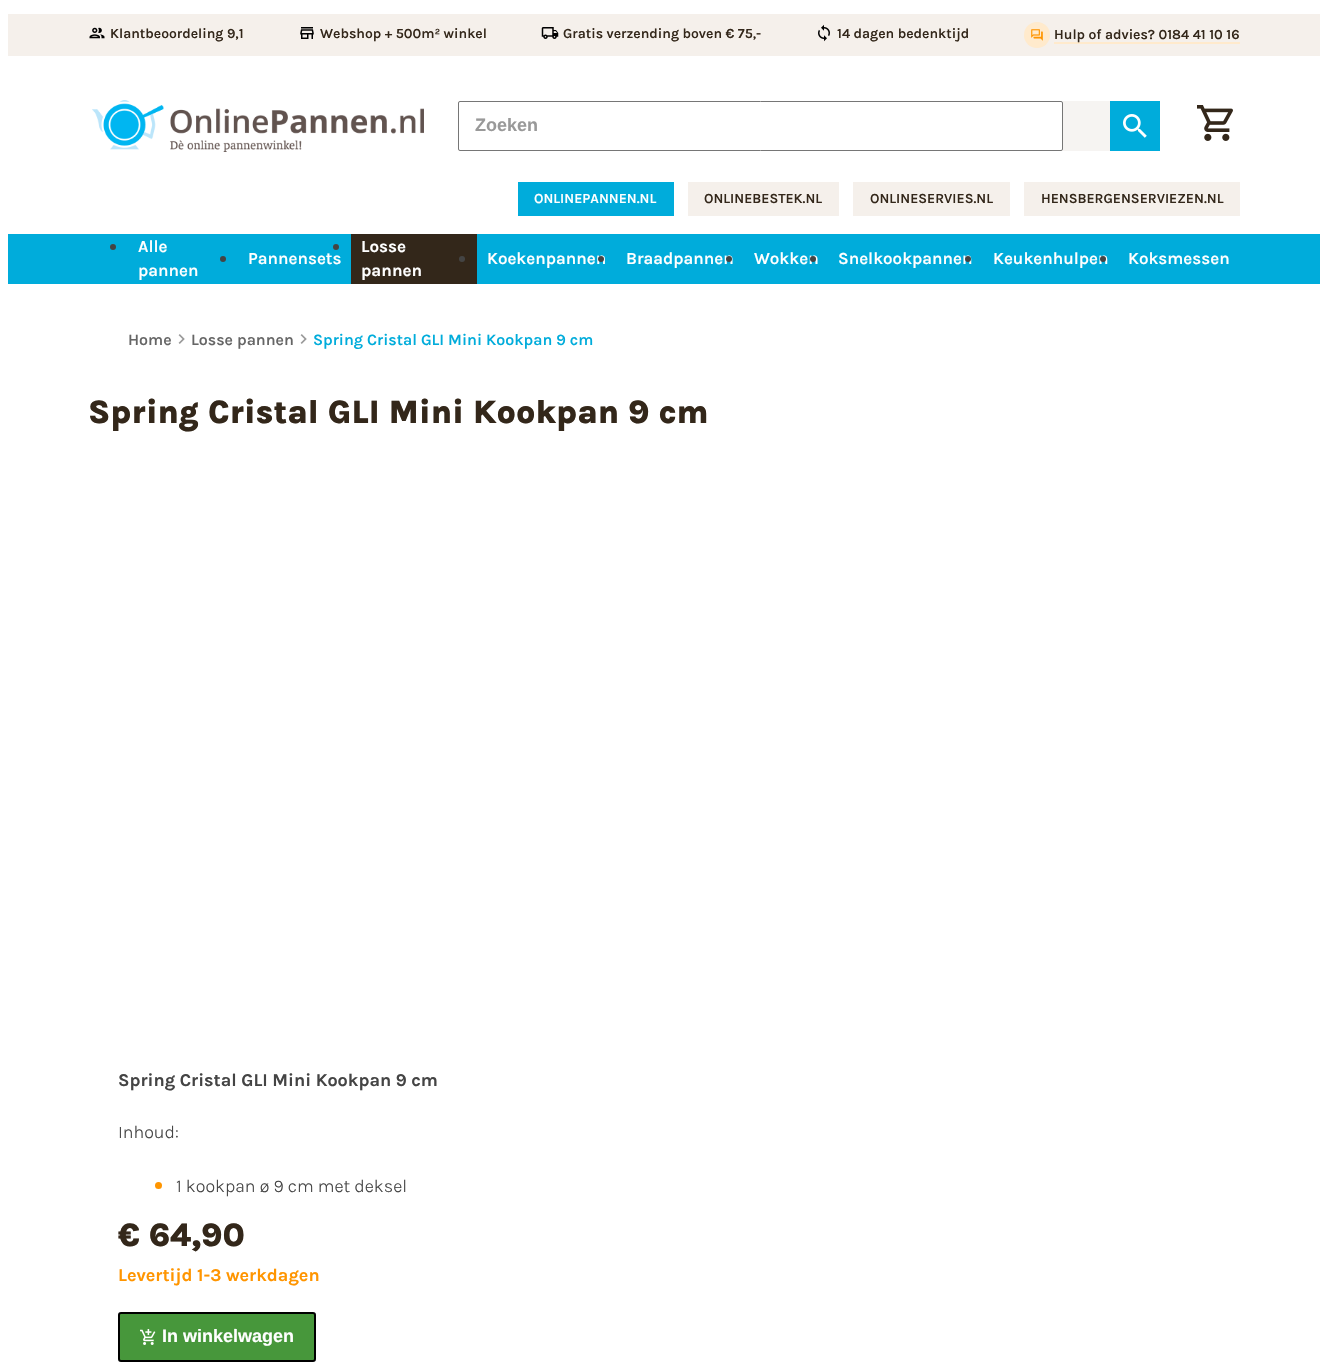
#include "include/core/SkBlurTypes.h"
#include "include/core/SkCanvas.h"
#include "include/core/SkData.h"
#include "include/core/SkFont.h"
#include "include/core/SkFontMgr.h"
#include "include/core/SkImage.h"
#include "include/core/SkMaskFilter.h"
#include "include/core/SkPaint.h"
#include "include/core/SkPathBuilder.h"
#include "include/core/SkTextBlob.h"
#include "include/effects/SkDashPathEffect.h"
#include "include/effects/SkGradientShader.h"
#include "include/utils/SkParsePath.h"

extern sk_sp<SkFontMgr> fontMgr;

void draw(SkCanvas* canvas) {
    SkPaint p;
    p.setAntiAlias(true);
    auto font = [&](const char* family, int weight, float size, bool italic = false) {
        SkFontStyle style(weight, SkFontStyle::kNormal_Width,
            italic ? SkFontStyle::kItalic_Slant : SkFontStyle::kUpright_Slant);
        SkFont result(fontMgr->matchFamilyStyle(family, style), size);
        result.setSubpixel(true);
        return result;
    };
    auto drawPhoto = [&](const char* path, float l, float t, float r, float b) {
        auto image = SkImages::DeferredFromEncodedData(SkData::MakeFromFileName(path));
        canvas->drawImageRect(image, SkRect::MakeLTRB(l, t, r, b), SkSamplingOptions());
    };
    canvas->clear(0xFFFFFFFF);
    p.setColor(0xFFF5F0EB);
    canvas->drawRect(SkRect::MakeLTRB(8, 14, 1320, 56), p);
    drawPhoto("media/1.png", 89, 27, 105, 39);
    auto font1 = font("Karla", 600, 14);
    p.setColor(0xFF33271A);
    canvas->drawString("Klantbeoordeling 9,1", 110, 38, font1, p);
    drawPhoto("media/2.png", 300, 27, 314, 39);
    canvas->drawString("Webshop + 500m² winkel", 320, 38, font1, p);
    drawPhoto("media/3.png", 541, 27, 559, 39);
    canvas->drawString("Gratis verzending boven € 75,-", 563, 38, font1, p);
    drawPhoto("media/4.png", 818, 24, 830, 42);
    canvas->drawString("14 dagen bedenktijd", 837, 38, font1, p);
    p.setColor(0xFFFFEACC);
    canvas->drawCircle(1037, 35, 13, p);
    drawPhoto("media/5.png", 1031, 29, 1043, 41);
    canvas->drawRect(SkRect::MakeLTRB(1054, 42, 1240, 44), p);
    p.setColor(0xFF33271A);
    canvas->drawString("Hulp of advies? 0184 41 10 16", 1054, 39, font1, p);
    drawPhoto("media/6.png", 92, 100, 424, 152);
    p.setColor(0xFFF6F4F2);
    canvas->drawRect(SkRect::MakeLTRB(458, 101, 1110, 151), p);
    p.setColor(0xFFFFFFFF);
    canvas->drawRoundRect(SkRect::MakeLTRB(458.5f, 101.5f, 1062.5f, 150.5f), 1.5f, 1.5f, p);
    p.setStyle(SkPaint::kStroke_Style);
    p.setStrokeWidth(1);
    p.setColor(0xFF767676);
    canvas->drawRoundRect(SkRect::MakeLTRB(458.5f, 101.5f, 1062.5f, 150.5f), 1.5f, 1.5f, p);
    auto font2 = font("Liberation Sans", 700, 18);
    p.setStyle(SkPaint::kFill_Style);
    p.setColor(0xFF999999);
    canvas->drawString("Zoeken", 475, 131, font2, p);
    p.setColor(0xFF00ACDB);
    canvas->drawRect(SkRect::MakeLTRB(1110, 101, 1160, 151), p);
    drawPhoto("media/7.png", 1123, 114, 1147, 138);
    drawPhoto("media/8.png", 1197, 105, 1233, 141);
    canvas->drawRect(SkRect::MakeLTRB(518, 182, 674, 216), p);
    p.setColor(0xFFFFFFFF);
    canvas->drawString("ONLINEPANNEN.NL", 534, 203, font1, p);
    p.setColor(0xFFF5F0EB);
    canvas->drawRect(SkRect::MakeLTRB(688, 182, 839, 216), p);
    p.setColor(0xFF33271A);
    canvas->drawString("ONLINEBESTEK.NL", 704, 203, font1, p);
    p.setColor(0xFFF5F0EB);
    canvas->drawRect(SkRect::MakeLTRB(853, 182, 1010, 216), p);
    p.setColor(0xFF33271A);
    canvas->drawString("ONLINESERVIES.NL", 870, 203, font1, p);
    p.setColor(0xFFF5F0EB);
    canvas->drawRect(SkRect::MakeLTRB(1024, 182, 1240, 216), p);
    p.setColor(0xFF33271A);
    canvas->drawString("HENSBERGENSERVIEZEN.NL", 1041, 203, font1, p);
    p.setColor(0xFF00ACDB);
    canvas->drawRect(SkRect::MakeLTRB(8, 234, 1320, 284), p);
    p.setColor(0xFF444444);
    canvas->drawCircle(113, 247, 3, p);
    auto font3 = font("Karla", 600, 17);
    p.setColor(0xFFFFFFFF);
    canvas->drawString("Alle", 138, 252, font3, p);
    canvas->drawString("pannen", 138, 276, font3, p);
    p.setColor(0xFF444444);
    canvas->drawCircle(223, 259, 3, p);
    p.setColor(0xFFFFFFFF);
    canvas->drawString("Pannensets", 248, 264, font3, p);
    p.setColor(0xFF444444);
    canvas->drawCircle(336, 247, 3, p);
    p.setColor(0xFF33271A);
    canvas->drawRect(SkRect::MakeLTRB(351, 234, 477, 284), p);
    auto font4 = font("Karla", 700, 17);
    p.setColor(0xFFFFFFFF);
    canvas->drawString("Losse", 361, 252, font4, p);
    canvas->drawString("pannen", 361, 276, font4, p);
    p.setColor(0xFF444444);
    canvas->drawCircle(462, 259, 3, p);
    p.setColor(0xFFFFFFFF);
    canvas->drawString("Koekenpannen", 487, 264, font3, p);
    p.setColor(0xFF444444);
    canvas->drawCircle(601, 259, 3, p);
    p.setColor(0xFFFFFFFF);
    canvas->drawString("Braadpannen", 626, 264, font3, p);
    p.setColor(0xFF444444);
    canvas->drawCircle(729, 259, 3, p);
    p.setColor(0xFFFFFFFF);
    canvas->drawString("Wokken", 754, 264, font3, p);
    p.setColor(0xFF444444);
    canvas->drawCircle(813, 259, 3, p);
    p.setColor(0xFFFFFFFF);
    canvas->drawString("Snelkookpannen", 838, 264, font3, p);
    p.setColor(0xFF444444);
    canvas->drawCircle(968, 259, 3, p);
    p.setColor(0xFFFFFFFF);
    canvas->drawString("Keukenhulpen", 993, 264, font3, p);
    p.setColor(0xFF444444);
    canvas->drawCircle(1103, 259, 3, p);
    p.setColor(0xFFFFFFFF);
    canvas->drawString("Koksmessen", 1128, 264, font3, p);
    auto font5 = font("Karla", 600, 16);
    p.setColor(0xFF666666);
    canvas->drawString("Home", 128, 345, font5, p);
    drawPhoto("media/9.png", 178, 334, 185, 344);
    canvas->drawString("Losse pannen", 191, 345, font5, p);
    drawPhoto("media/9.png", 300, 334, 307, 344);
    p.setColor(0xFF00ACDB);
    canvas->drawString("Spring Cristal GLI Mini Kookpan 9 cm", 313, 345, font5, p);
    auto font6 = font("Karla", 800, 33.25f);
    p.setColor(0xFF33271A);
    canvas->drawString("Spring Cristal GLI Mini Kookpan 9 cm", 88, 423, font6, p);
    auto font7 = font("Karla", 700, 18);
    p.setColor(0xFF444444);
    canvas->drawString("Spring Cristal GLI Mini Kookpan 9 cm", 118, 1086, font7, p);
    auto font8 = font("Karla", 300, 18);
    canvas->drawString("Inhoud:", 118, 1138, font8, p);
    p.setColor(0xFFFF9500);
    canvas->drawCircle(158.5f, 1185.5f, 3.5f, p);
    p.setColor(0xFF444444);
    canvas->drawString("1 kookpan ø 9 cm met deksel", 176, 1192, font8, p);
    p.setColor(0xFF33271A);
    canvas->drawString("€ 64,90", 118, 1246, font6, p);
    p.setColor(0xFFFF9500);
    canvas->drawString("Levertijd 1-3 werkdagen", 118, 1281, font7, p);
    p.setColor(0xFF47973B);
    canvas->drawRoundRect(SkRect::MakeLTRB(119, 1313, 315, 1361), 2, 2, p);
    p.setStyle(SkPaint::kStroke_Style);
    p.setStrokeWidth(2);
    p.setColor(0xFF000000);
    canvas->drawRoundRect(SkRect::MakeLTRB(119, 1313, 315, 1361), 2, 2, p);
    drawPhoto("media/10.png", 140, 1329, 156, 1345);
    p.setStyle(SkPaint::kFill_Style);
    p.setColor(0xFFFFFFFF);
    canvas->drawString("In winkelwagen", 162, 1342, font2, p);
}
